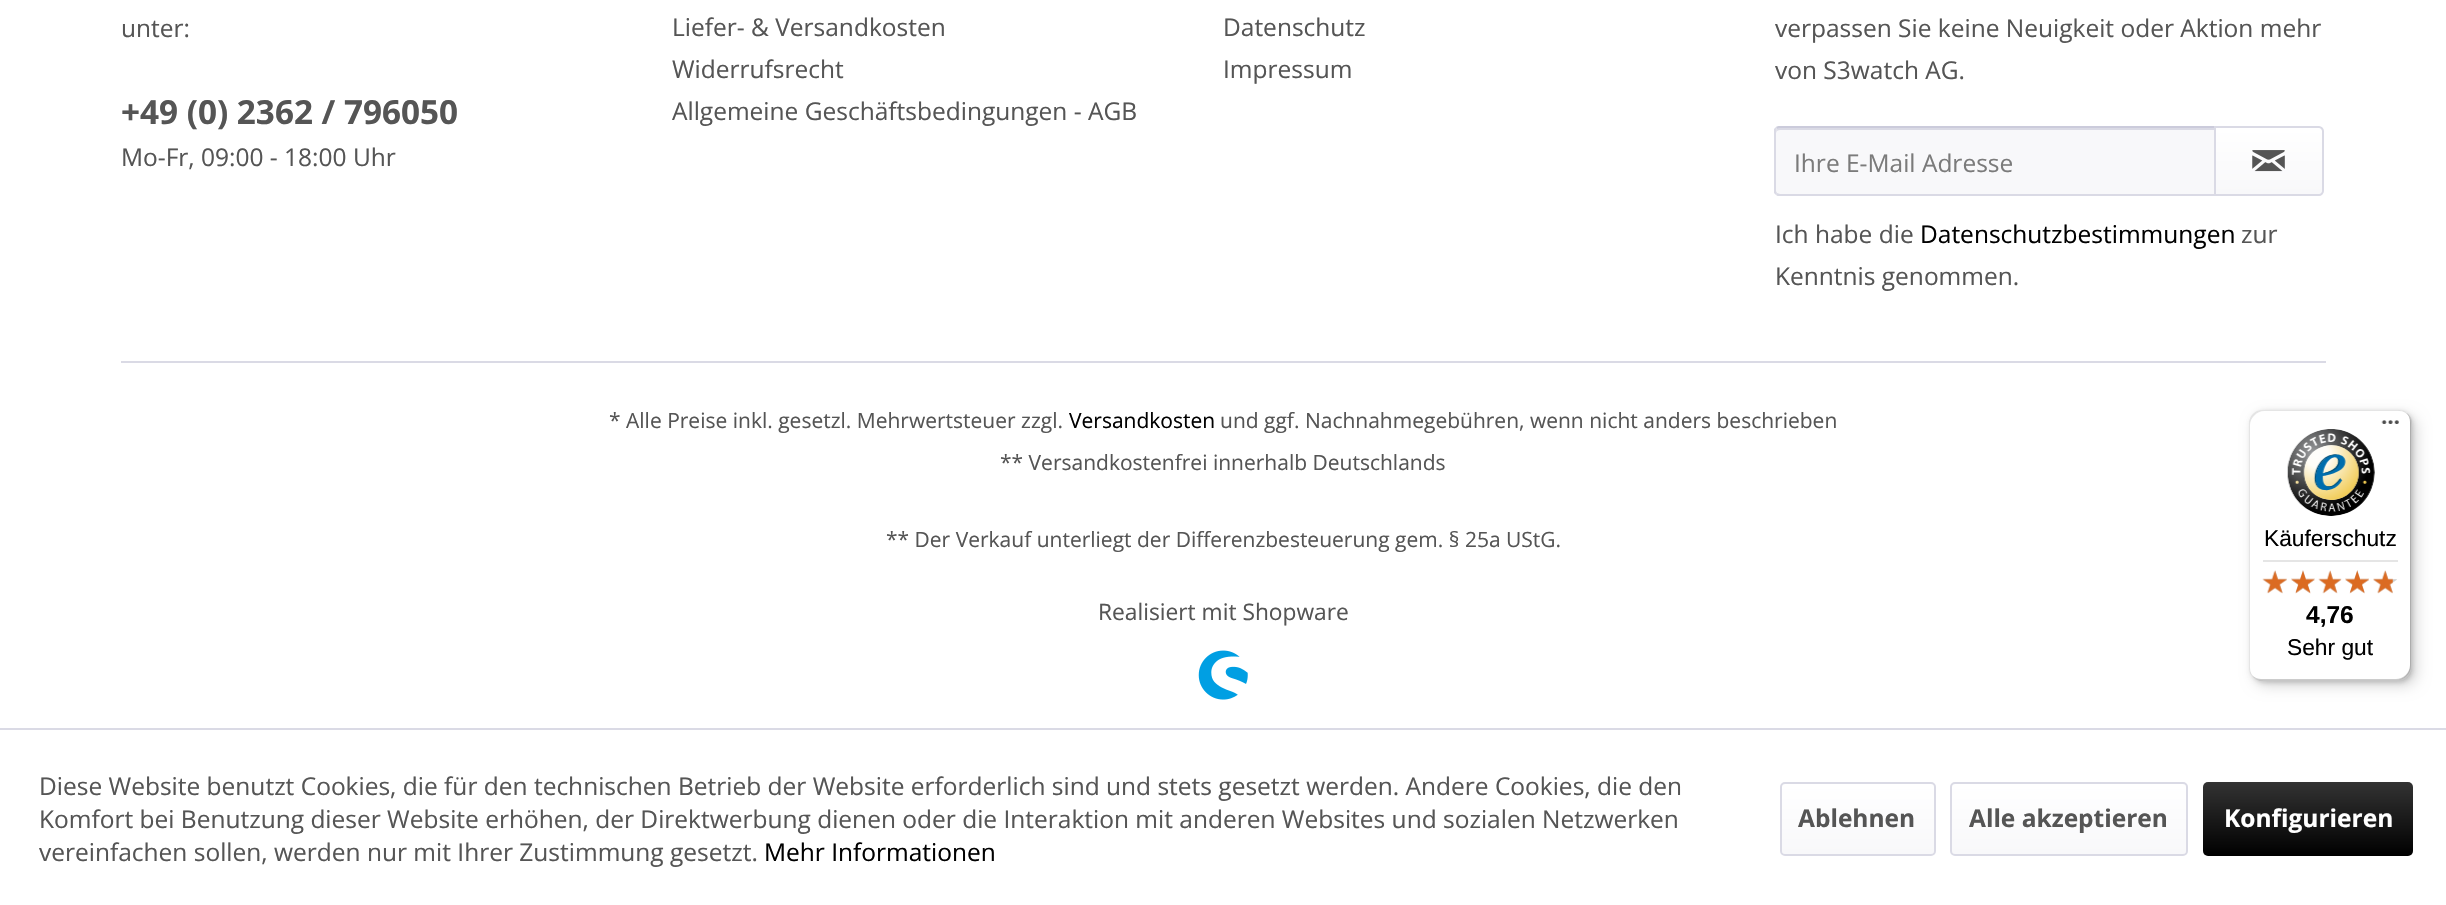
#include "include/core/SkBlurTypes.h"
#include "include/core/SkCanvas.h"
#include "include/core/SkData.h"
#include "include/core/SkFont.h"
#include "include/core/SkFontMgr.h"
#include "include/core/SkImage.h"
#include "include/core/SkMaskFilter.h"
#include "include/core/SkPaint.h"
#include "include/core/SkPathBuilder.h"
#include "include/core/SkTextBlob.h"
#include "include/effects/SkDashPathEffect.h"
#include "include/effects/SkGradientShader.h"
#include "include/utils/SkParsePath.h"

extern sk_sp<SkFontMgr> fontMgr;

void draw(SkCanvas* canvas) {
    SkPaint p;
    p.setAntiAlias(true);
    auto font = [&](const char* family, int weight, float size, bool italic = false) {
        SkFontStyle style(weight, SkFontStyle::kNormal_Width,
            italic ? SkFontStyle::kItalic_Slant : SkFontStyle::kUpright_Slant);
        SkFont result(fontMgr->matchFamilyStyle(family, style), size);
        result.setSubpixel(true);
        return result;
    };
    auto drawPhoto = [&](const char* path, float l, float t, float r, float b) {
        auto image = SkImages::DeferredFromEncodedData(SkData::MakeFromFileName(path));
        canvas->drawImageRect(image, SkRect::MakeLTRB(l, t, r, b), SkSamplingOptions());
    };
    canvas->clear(0xFFFFFFFF);
    p.setColor(0xFFDADAE5);
    canvas->drawRect(SkRect::MakeLTRB(121, 361, 2326, 363), p);
    auto font1 = font("Open Sans", 400, 24.5f);
    p.setColor(0xFF555555);
    canvas->drawString("unter:", 121, 37, font1, p);
    auto font2 = font("Open Sans", 700, 33.25f);
    canvas->drawString("+49 (0) 2362 / 796050", 121, 124, font2, p);
    {
        const struct { const char* s; float x, y; } items[] = {
            {"Mo-Fr, 09:00 - 18:00 Uhr", 121, 166},
            {"Liefer- & Versandkosten", 672, 36},
            {"Widerrufsrecht", 672, 78},
            {"Allgemeine Geschäftsbedingungen - AGB", 672, 120},
            {"Datenschutz", 1223, 36},
            {"Impressum", 1223, 78},
            {"verpassen Sie keine Neuigkeit oder Aktion mehr", 1775, 37},
            {"von S3watch AG.", 1775, 79},
        };
        for (auto [s, x, y] : items) {
            canvas->drawString(s, x, y, font1, p);
        }
    }
    p.setColor(0xFFF8F8FA);
    canvas->drawPath(SkPathBuilder().moveTo(1780, 128).lineTo(2214, 128).lineTo(2214, 194).lineTo(1780, 194).cubicTo(1778, 194, 1776, 192, 1776, 190).lineTo(1776, 132).cubicTo(1776, 130, 1778, 128, 1780, 128).close().detach(), p);
    p.setColor(0xFFDADAE5);
    canvas->drawPath(SkPathBuilder().moveTo(1780, 130).lineTo(2214, 130).lineTo(2214, 128).lineTo(1780, 128).cubicTo(1778, 128, 1776, 130, 1776, 132).lineTo(1776, 133).cubicTo(1776, 131, 1778, 130, 1780, 130).close().detach(), p);
    p.setColor(0xFFCBCBDB);
    canvas->drawPath(SkPathBuilder().moveTo(1780, 126).cubicTo(1778, 126, 1777, 126, 1776, 127).lineTo(1777, 129).lineTo(1780, 128).lineTo(2214, 128).lineTo(2216, 126).close().detach(), p);
    p.setColor(0xFFDADAE5);
    canvas->drawPath(SkPathBuilder().moveTo(2216, 196).lineTo(2214, 194).lineTo(1780, 194).lineTo(1777, 193).lineTo(1776, 195).cubicTo(1777, 196, 1778, 196, 1780, 196).close().detach(), p);
    canvas->drawPath(SkPathBuilder().moveTo(1774, 129).lineTo(1776, 127).lineTo(1777, 129).lineTo(1776, 131).lineTo(1776, 191).lineTo(1777, 193).lineTo(1776, 195).lineTo(1774, 193).close().detach(), p);
    p.setColor(0xFF7B7B7B);
    canvas->drawString("Ihre E-Mail Adresse", 1794, 172, font1, p);
    {
        const SkColor colors[] = {0xFFFFFFFF, 0xFFF8F8FA};
        const float stops[] = {0, 1};
        const SkPoint ends[] = {{2269, 128}, {2269, 194}};
        p.setShader(SkGradientShader::MakeLinear(ends, colors, stops, 2, SkTileMode::kClamp));
        p.setAlpha(255);
    }
    canvas->drawPath(SkPathBuilder().moveTo(2216, 128).lineTo(2318, 128).cubicTo(2320, 128, 2322, 130, 2322, 132).lineTo(2322, 190).cubicTo(2322, 192, 2320, 194, 2318, 194).lineTo(2216, 194).close().detach(), p);
    p.setStyle(SkPaint::kStroke_Style);
    p.setStrokeWidth(2);
    p.setShader(nullptr);
    p.setColor(0xFFDADAE5);
    canvas->drawPath(SkPathBuilder().moveTo(2215, 127).lineTo(2319, 127).cubicTo(2321, 127, 2323, 129, 2323, 131).lineTo(2323, 191).cubicTo(2323, 193, 2321, 195, 2319, 195).lineTo(2215, 195).close().detach(), p);
    drawPhoto("media/1.png", 2252, 150, 2285, 172);
    p.setStyle(SkPaint::kFill_Style);
    p.setColor(0xFF555555);
    canvas->drawString("Ich habe die", 1775, 243, font1, p);
    p.setColor(0xFF000000);
    canvas->drawString("Datenschutzbestimmungen", 1920, 243, font1, p);
    p.setColor(0xFF555555);
    canvas->drawString("zur", 2241, 243, font1, p);
    canvas->drawString("Kenntnis genommen.", 1775, 285, font1, p);
    auto font3 = font("Open Sans", 400, 21);
    canvas->drawString("* Alle Preise inkl. gesetzl. Mehrwertsteuer zzgl.", 609, 428, font3, p);
    p.setColor(0xFF000000);
    canvas->drawString("Versandkosten", 1069, 428, font3, p);
    p.setColor(0xFF555555);
    {
        const struct { const char* s; float x, y; } items[] = {
            {"und ggf. Nachnahmegebühren, wenn nicht anders beschrieben", 1220, 428},
            {"** Versandkostenfrei innerhalb Deutschlands", 1000, 470},
            {"** Der Verkauf unterliegt der Differenzbesteuerung gem. § 25a UStG.", 886, 547},
        };
        for (auto [s, x, y] : items) {
            canvas->drawString(s, x, y, font3, p);
        }
    }
    auto font4 = font("Open Sans", 400, 22.75f);
    canvas->drawString("Realisiert mit Shopware", 1098, 620, font4, p);
    drawPhoto("media/2.png", 1198, 650, 1248, 700);
    p.setColor(0x26000000);
    p.setMaskFilter(SkMaskFilter::MakeBlur(kNormal_SkBlurStyle, 7));
    canvas->drawRoundRect(SkRect::MakeLTRB(2254, 415, 2417, 686), 14, 14, p);
    p.setMaskFilter(nullptr);
    p.setMaskFilter(SkMaskFilter::MakeBlur(kNormal_SkBlurStyle, 2));
    canvas->drawRoundRect(SkRect::MakeLTRB(2251, 411, 2413, 683), 14, 14, p);
    p.setMaskFilter(nullptr);
    p.setColor(0xFFFFFFFF);
    canvas->drawRoundRect(SkRect::MakeLTRB(2249, 410, 2412, 681), 14, 14, p);
    p.setColor(0x1A000000);
    canvas->drawPath(SkPathBuilder().moveTo(2264, 411).lineTo(2399, 411).cubicTo(2403, 411, 2407, 413, 2409, 416).cubicTo(2407, 412, 2403, 410, 2398, 410).lineTo(2263, 410).cubicTo(2255, 410, 2249, 416, 2249, 424).lineTo(2249, 667).cubicTo(2249, 672, 2251, 676, 2255, 678).cubicTo(2252, 676, 2250, 672, 2250, 668).lineTo(2250, 425).cubicTo(2250, 418, 2257, 411, 2264, 411).close().detach(), p);
    p.setColor(0x33000000);
    canvas->drawPath(SkPathBuilder().moveTo(2253, 676).cubicTo(2255, 679, 2259, 681, 2263, 681).lineTo(2398, 681).cubicTo(2406, 681, 2412, 675, 2412, 667).lineTo(2412, 424).cubicTo(2412, 419, 2410, 415, 2406, 413).cubicTo(2409, 415, 2410, 418, 2410, 422).lineTo(2410, 665).cubicTo(2410, 673, 2403, 679, 2396, 679).lineTo(2261, 679).cubicTo(2258, 679, 2255, 678, 2253, 676).close().detach(), p);
    p.setColor(0x33323232);
    canvas->drawPath(SkPathBuilder().moveTo(2252, 675).cubicTo(2254, 679, 2258, 681, 2263, 681).lineTo(2398, 681).cubicTo(2406, 681, 2412, 675, 2412, 667).lineTo(2412, 424).cubicTo(2412, 419, 2410, 415, 2406, 413).cubicTo(2409, 415, 2410, 419, 2410, 422).lineTo(2410, 666).cubicTo(2410, 673, 2404, 680, 2396, 680).lineTo(2262, 680).cubicTo(2258, 680, 2254, 678, 2252, 675).close().detach(), p);
    p.setColor(0x4DFFFFFF);
    canvas->drawPath(SkPathBuilder().moveTo(2254, 677).cubicTo(2256, 680, 2259, 681, 2263, 681).lineTo(2398, 681).cubicTo(2406, 681, 2412, 675, 2412, 667).lineTo(2412, 424).cubicTo(2412, 419, 2410, 415, 2406, 413).cubicTo(2409, 415, 2411, 419, 2411, 423).lineTo(2411, 666).cubicTo(2411, 674, 2404, 680, 2397, 680).lineTo(2262, 680).cubicTo(2259, 680, 2256, 679, 2254, 677).close().detach(), p);
    drawPhoto("media/3.png", 2381, 420, 2399, 424);
    drawPhoto("media/4.png", 2287, 429, 2375, 516);
    auto font5 = font("Liberation Sans", 400, 22.75f);
    p.setColor(0xFF000000);
    canvas->drawString("Käuferschutz", 2264, 546, font5, p);
    p.setColor(0xFFE5E5E5);
    canvas->drawRect(SkRect::MakeLTRB(2263, 560, 2398, 562), p);
    drawPhoto("media/5.png", 2262, 571, 2287, 593);
    drawPhoto("media/6.png", 2291, 570, 2315, 593);
    drawPhoto("media/7.png", 2318, 571, 2342, 593);
    drawPhoto("media/8.png", 2345, 570, 2369, 593);
    drawPhoto("media/9.png", 2373, 571, 2397, 593);
    drawPhoto("media/10.png", 2262, 570, 2287, 594);
    drawPhoto("media/11.png", 2291, 570, 2315, 594);
    drawPhoto("media/12.png", 2318, 570, 2342, 594);
    drawPhoto("media/13.png", 2345, 570, 2369, 594);
    drawPhoto("media/14.png", 2373, 570, 2393, 594);
    auto font6 = font("Liberation Sans", 700, 24.5f);
    p.setColor(0xFF000000);
    canvas->drawString("4,76", 2306, 623, font6, p);
    canvas->drawString("Sehr gut", 2287, 655, font5, p);
    p.setColor(0xFFDADAE5);
    canvas->drawRect(SkRect::MakeLTRB(0, 728, 2446, 730), p);
    p.setColor(0xFF555555);
    {
        const struct { const char* s; float x, y; } items[] = {
            {"Diese Website benutzt Cookies, die für den technischen Betrieb der Website erforderlich sind und stets gesetzt werden. Andere Cookies, die den", 39, 795},
            {"Komfort bei Benutzung dieser Website erhöhen, der Direktwerbung dienen oder die Interaktion mit anderen Websites und sozialen Netzwerken", 39, 828},
            {"vereinfachen sollen, werden nur mit Ihrer Zustimmung gesetzt.", 39, 861},
        };
        for (auto [s, x, y] : items) {
            canvas->drawString(s, x, y, font1, p);
        }
    }
    p.setColor(0xFF000000);
    canvas->drawString("Mehr Informationen", 764, 861, font1, p);
    {
        const SkColor colors[] = {0xFFFFFFFF, 0xFFF8F8FA};
        const float stops[] = {0, 1};
        const SkPoint ends[] = {{1858, 784}, {1858, 854}};
        p.setShader(SkGradientShader::MakeLinear(ends, colors, stops, 2, SkTileMode::kClamp));
        p.setAlpha(255);
    }
    canvas->drawRoundRect(SkRect::MakeLTRB(1782, 784, 1934, 854), 4, 4, p);
    p.setStyle(SkPaint::kStroke_Style);
    p.setShader(nullptr);
    p.setColor(0xFFDADAE5);
    canvas->drawRoundRect(SkRect::MakeLTRB(1781, 783, 1935, 855), 4, 4, p);
    auto font7 = font("Open Sans", 700, 24.5f);
    p.setStyle(SkPaint::kFill_Style);
    p.setColor(0xFF555555);
    canvas->drawString("Ablehnen", 1798, 827, font7, p);
    {
        const SkColor colors[] = {0xFFFFFFFF, 0xFFF8F8FA};
        const float stops[] = {0, 1};
        const SkPoint ends[] = {{2069, 784}, {2069, 854}};
        p.setShader(SkGradientShader::MakeLinear(ends, colors, stops, 2, SkTileMode::kClamp));
        p.setAlpha(255);
    }
    canvas->drawRoundRect(SkRect::MakeLTRB(1951, 784, 2186, 854), 4, 4, p);
    p.setStyle(SkPaint::kStroke_Style);
    p.setShader(nullptr);
    p.setColor(0xFFDADAE5);
    canvas->drawRoundRect(SkRect::MakeLTRB(1951, 783, 2187, 855), 4, 4, p);
    p.setStyle(SkPaint::kFill_Style);
    p.setColor(0xFF555555);
    canvas->drawString("Alle akzeptieren", 1969, 827, font7, p);
    {
        const SkColor colors[] = {0xFF333333, 0xFF000000};
        const float stops[] = {0, 1};
        const SkPoint ends[] = {{2308, 782}, {2308, 856}};
        p.setShader(SkGradientShader::MakeLinear(ends, colors, stops, 2, SkTileMode::kClamp));
        p.setAlpha(255);
    }
    canvas->drawRoundRect(SkRect::MakeLTRB(2203, 782, 2413, 856), 5, 5, p);
    p.setShader(nullptr);
    p.setColor(0xFFFFFFFF);
    canvas->drawString("Konfigurieren", 2224, 827, font7, p);
}
